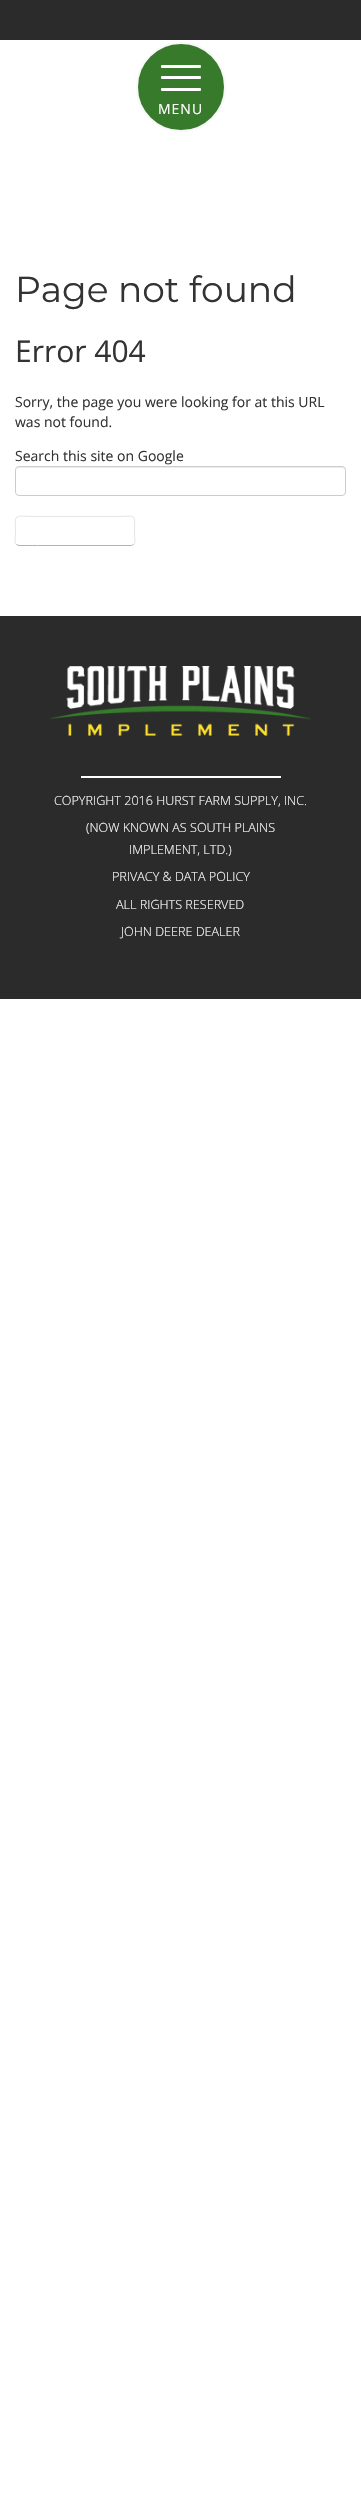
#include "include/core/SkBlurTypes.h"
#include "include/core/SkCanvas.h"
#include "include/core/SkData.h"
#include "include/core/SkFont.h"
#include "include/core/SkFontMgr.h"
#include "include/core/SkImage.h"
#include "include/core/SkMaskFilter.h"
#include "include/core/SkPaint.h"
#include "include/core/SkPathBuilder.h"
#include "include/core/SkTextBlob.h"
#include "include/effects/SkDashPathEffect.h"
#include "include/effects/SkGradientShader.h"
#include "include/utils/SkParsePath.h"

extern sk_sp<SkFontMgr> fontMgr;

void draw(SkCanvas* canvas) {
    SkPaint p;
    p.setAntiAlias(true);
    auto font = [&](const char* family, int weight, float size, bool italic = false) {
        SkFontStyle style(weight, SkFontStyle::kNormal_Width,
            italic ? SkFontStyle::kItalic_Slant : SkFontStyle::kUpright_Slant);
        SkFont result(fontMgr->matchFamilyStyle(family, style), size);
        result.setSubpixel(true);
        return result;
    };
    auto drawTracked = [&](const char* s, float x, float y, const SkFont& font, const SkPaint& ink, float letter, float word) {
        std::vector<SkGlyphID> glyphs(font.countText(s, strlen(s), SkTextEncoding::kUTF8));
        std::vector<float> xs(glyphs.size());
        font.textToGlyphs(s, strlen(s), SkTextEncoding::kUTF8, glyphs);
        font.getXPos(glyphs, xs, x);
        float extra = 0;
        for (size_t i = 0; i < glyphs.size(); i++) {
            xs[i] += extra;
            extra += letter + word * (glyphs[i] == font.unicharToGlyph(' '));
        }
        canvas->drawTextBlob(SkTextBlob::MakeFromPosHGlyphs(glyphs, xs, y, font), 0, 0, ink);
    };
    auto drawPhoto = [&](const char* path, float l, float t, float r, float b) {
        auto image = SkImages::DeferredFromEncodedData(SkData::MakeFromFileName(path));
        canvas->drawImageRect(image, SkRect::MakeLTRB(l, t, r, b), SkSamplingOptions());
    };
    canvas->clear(0xFFFFFFFF);
    p.setColor(0xFF2B2B2B);
    canvas->drawRect(SkRect::MakeLTRB(0, 0, 361, 40), p);
    p.setColor(0xFF377A2B);
    canvas->drawCircle(181, 87, 44, p);
    p.setStyle(SkPaint::kStroke_Style);
    p.setStrokeWidth(2);
    p.setColor(0xFFF8F8F8);
    canvas->drawCircle(181, 87, 44, p);
    p.setStyle(SkPaint::kFill_Style);
    p.setColor(0xFFFFFFFF);
    canvas->drawRoundRect(SkRect::MakeLTRB(161, 76, 201, 79), 1, 1, p);
    canvas->drawRoundRect(SkRect::MakeLTRB(161, 65, 201, 68), 1, 1, p);
    canvas->drawRoundRect(SkRect::MakeLTRB(161, 88, 201, 91), 1, 1, p);
    auto font1 = font("Open Sans", 400, 14);
    drawTracked("MENU", 158, 114, font1, p, 1, 0);
    auto font2 = font("Montserrat", 400, 36);
    p.setColor(0xFF333333);
    canvas->drawString("Page not found", 15, 302, font2, p);
    auto font3 = font("Open Sans", 400, 30);
    canvas->drawString("Error 404", 15, 362, font3, p);
    {
        const struct { const char* s; float x, y; } items[] = {
            {"Sorry, the page you were looking for at this URL", 15, 407},
            {"was not found.", 15, 427},
            {"Search this site on Google", 15, 461},
        };
        for (auto [s, x, y] : items) {
            canvas->drawString(s, x, y, font1, p);
        }
    }
    p.setColor(0xFFECECEC);
    canvas->drawPath(SkPathBuilder().moveTo(19, 468).lineTo(342, 468).cubicTo(344, 468, 345, 469, 345, 471).cubicTo(345, 469, 344, 467, 342, 467).lineTo(19, 467).cubicTo(17, 467, 16, 469, 16, 471).cubicTo(16, 469, 17, 468, 19, 468).close().detach(), p);
    p.setStyle(SkPaint::kStroke_Style);
    p.setStrokeWidth(1);
    p.setColor(0xFFCCCCCC);
    canvas->drawRoundRect(SkRect::MakeLTRB(15.5f, 466.5f, 345.5f, 495.5f), 3.5f, 3.5f, p);
    p.setColor(0xFFB3B3B3);
    canvas->drawPath(SkPathBuilder().moveTo(133.5f, 544.5f).lineTo(131.5f, 545.5f).lineTo(37.5f, 545.5f).lineTo(19, 545.5f).lineTo(16.5f, 544.5f).detach(), p);
    p.setColor(0x1A000000);
    canvas->drawPath(SkPathBuilder().moveTo(16.5f, 544.5f).cubicTo(14, 542, 15.5f, 537.5f, 15.5f, 534.5f).cubicTo(15.5f, 512, 12, 516.5f, 37.5f, 516.5f).lineTo(112.5f, 516.5f).cubicTo(138, 516.5f, 134.5f, 512, 134.5f, 534.5f).cubicTo(134.5f, 537.5f, 136, 542, 133.5f, 544.5f).detach(), p);
    p.setStyle(SkPaint::kFill_Style);
    p.setColor(0xFF2B2B2B);
    canvas->drawRect(SkRect::MakeLTRB(0, 616, 361, 999), p);
    drawPhoto("media/1.png", 50, 666, 311, 736);
    p.setColor(0xFFFFFFFF);
    canvas->drawRect(SkRect::MakeLTRB(81, 776, 281, 778), p);
    auto font4 = font("Open Sans", 300, 12.6f);
    {
        const struct { const char* s; float x, y; } items[] = {
            {"COPYRIGHT 2016 HURST FARM SUPPLY, INC.", 54, 805},
            {"(NOW KNOWN AS SOUTH PLAINS", 86, 832},
            {"IMPLEMENT, LTD.)", 129, 854},
            {"PRIVACY & DATA POLICY", 112, 881},
            {"ALL RIGHTS RESERVED", 116, 909},
            {"JOHN DEERE DEALER", 121, 936},
        };
        for (auto [s, x, y] : items) {
            canvas->drawString(s, x, y, font4, p);
        }
    }
}
